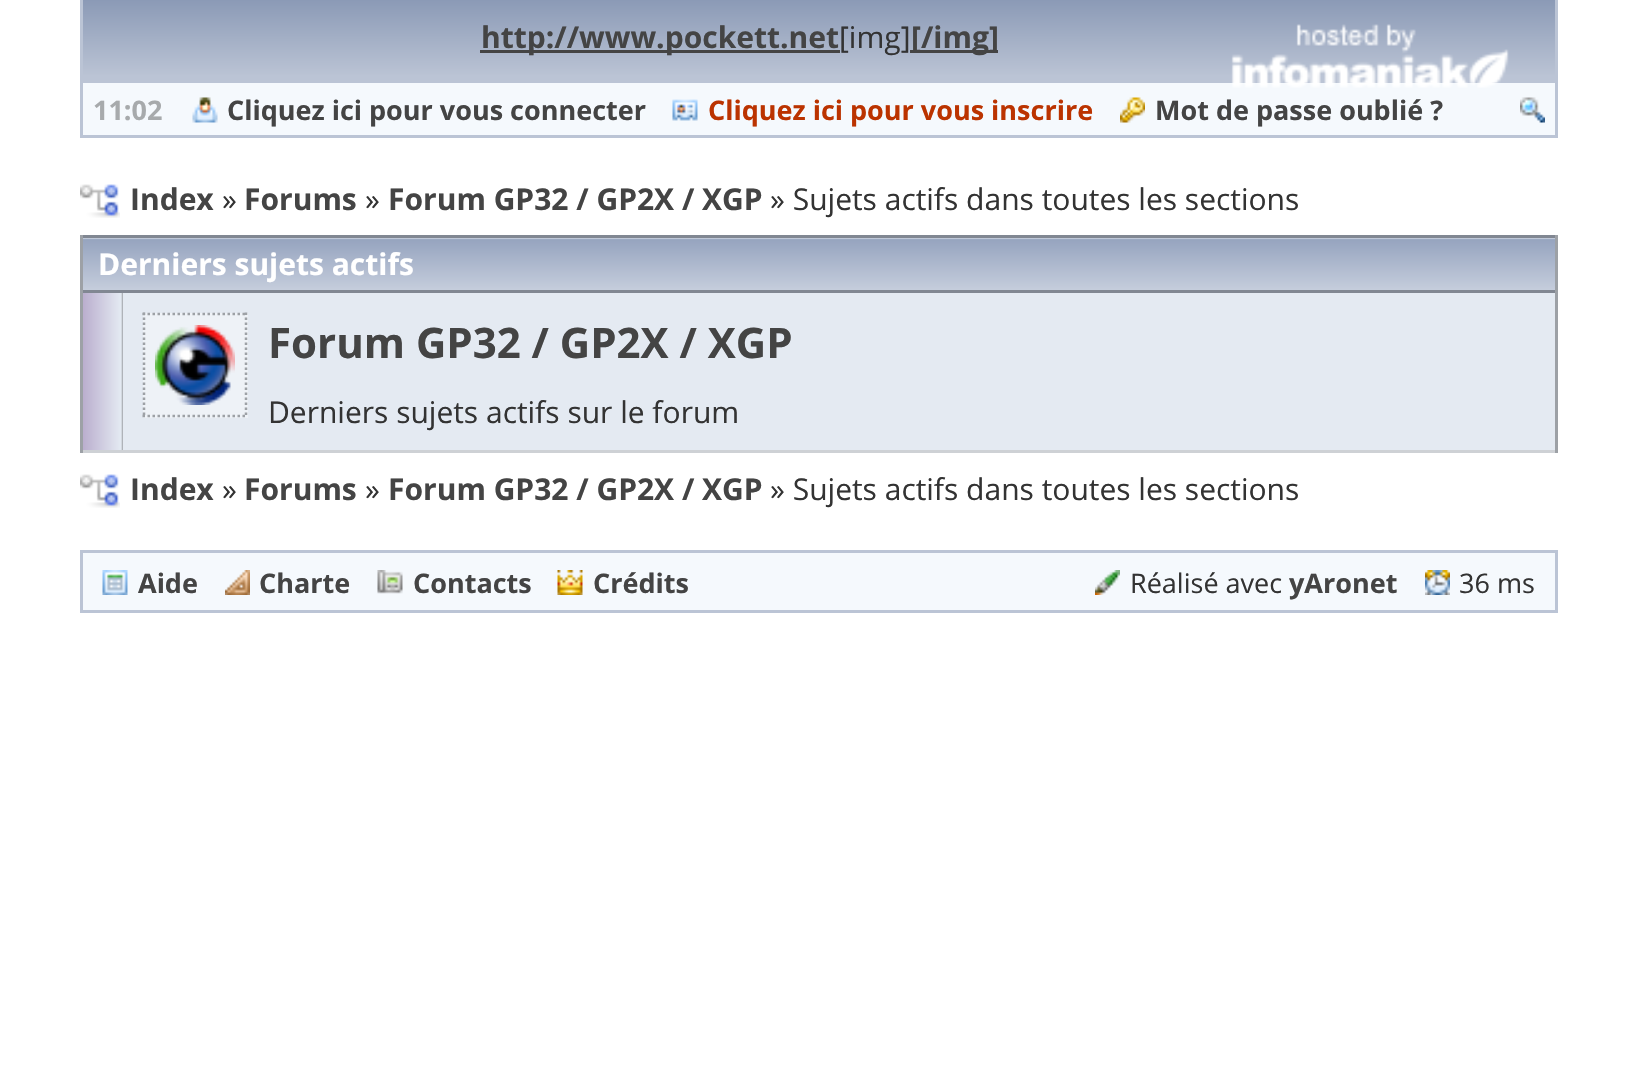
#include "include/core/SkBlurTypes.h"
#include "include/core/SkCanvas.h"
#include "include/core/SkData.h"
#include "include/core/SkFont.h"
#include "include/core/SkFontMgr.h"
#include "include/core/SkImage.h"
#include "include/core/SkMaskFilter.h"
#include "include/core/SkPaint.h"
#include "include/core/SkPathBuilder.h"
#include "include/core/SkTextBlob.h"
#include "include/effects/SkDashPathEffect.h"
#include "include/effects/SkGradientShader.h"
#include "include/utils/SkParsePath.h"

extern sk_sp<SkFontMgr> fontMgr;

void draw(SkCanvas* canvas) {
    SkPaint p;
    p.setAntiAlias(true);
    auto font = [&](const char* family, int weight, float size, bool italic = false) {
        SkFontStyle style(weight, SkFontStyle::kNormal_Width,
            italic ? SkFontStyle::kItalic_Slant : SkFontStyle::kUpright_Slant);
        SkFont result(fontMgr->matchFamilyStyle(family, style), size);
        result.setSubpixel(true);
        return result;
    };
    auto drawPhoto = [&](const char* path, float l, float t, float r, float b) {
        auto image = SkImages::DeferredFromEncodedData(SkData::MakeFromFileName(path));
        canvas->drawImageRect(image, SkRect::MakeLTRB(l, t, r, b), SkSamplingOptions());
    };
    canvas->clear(0xFFFFFFFF);
    {
        const SkColor colors[] = {0xFF8B9AB6, 0xFFBAC3D4};
        const float stops[] = {0, 1};
        const SkPoint ends[] = {{819, 0}, {819, 75}};
        p.setShader(SkGradientShader::MakeLinear(ends, colors, stops, 2, SkTileMode::kClamp));
        p.setAlpha(255);
    }
    canvas->drawRect(SkRect::MakeLTRB(83, 0, 1555, 75), p);
    p.setShader(nullptr);
    {
        const struct { float l, t, r, b; SkColor color; } items[] = {
            {1555, 0, 1558, 138, 0xFFBBC4D5},
            {80, 75, 1558, 83, 0xFFBBC4D5},
            {80, 0, 83, 83, 0xFFBBC4D5},
            {480, 50, 840, 53, 0xFF444444},
        };
        for (auto [l, t, r, b, color] : items) {
            p.setColor(color);
            canvas->drawRect(SkRect::MakeLTRB(l, t, r, b), p);
        }
    }
    auto font1 = font("Open Sans", 700, 30);
    canvas->drawString("http://www.pockett.net", 481, 48, font1, p);
    auto font2 = font("Open Sans", 400, 30);
    p.setColor(0xFF333333);
    canvas->drawString("[img]", 839, 48, font2, p);
    p.setColor(0xFF444444);
    canvas->drawRect(SkRect::MakeLTRB(910, 50, 998, 53), p);
    canvas->drawString("[/img]", 911, 48, font1, p);
    p.setColor(0xFFF5F9FD);
    canvas->drawRect(SkRect::MakeLTRB(83, 83, 1555, 135), p);
    drawPhoto("media/1.png", 1231, 24, 1509, 88);
    p.setColor(0xFFBBC4D5);
    canvas->drawRect(SkRect::MakeLTRB(80, 135, 1558, 138), p);
    canvas->drawRect(SkRect::MakeLTRB(80, 83, 83, 138), p);
    auto font3 = font("Open Sans", 700, 27);
    p.setColor(0xFFA7AAAC);
    canvas->drawString("11:02", 93, 120, font3, p);
    drawPhoto("media/2.png", 192, 97, 218, 123);
    p.setColor(0xFF444444);
    canvas->drawString("Cliquez ici pour vous connecter", 227, 120, font3, p);
    drawPhoto("media/3.png", 672, 99, 698, 121);
    p.setColor(0xFFBB3300);
    canvas->drawString("Cliquez ici pour vous inscrire", 708, 120, font3, p);
    drawPhoto("media/4.png", 1120, 97, 1145, 123);
    p.setColor(0xFF444444);
    canvas->drawString("Mot de passe oublié ?", 1155, 120, font3, p);
    drawPhoto("media/5.png", 1520, 97, 1545, 123);
    drawPhoto("media/6.png", 80, 184, 120, 218);
    canvas->drawString("Index", 130, 210, font1, p);
    p.setColor(0xFF333333);
    canvas->drawString("»", 222, 210, font2, p);
    p.setColor(0xFF444444);
    canvas->drawString("Forums", 244, 210, font1, p);
    p.setColor(0xFF333333);
    canvas->drawString("»", 365, 210, font2, p);
    p.setColor(0xFF444444);
    canvas->drawString("Forum GP32 / GP2X / XGP", 388, 210, font1, p);
    p.setColor(0xFF333333);
    canvas->drawString("» Sujets actifs dans toutes les sections", 770, 210, font2, p);
    {
        const struct { float l, t, r, b; SkColor color; } items[] = {
            {123, 293, 1555, 450, 0xFFE4EAF2},
            {1555, 235, 1558, 453, 0xFF9DA1A6},
            {80, 235, 83, 453, 0xFF9DA1A6},
        };
        for (auto [l, t, r, b, color] : items) {
            p.setColor(color);
            canvas->drawRect(SkRect::MakeLTRB(l, t, r, b), p);
        }
    }
    {
        const SkColor colors[] = {0xFFF5F6F9, 0xFF96A4BF, 0xFFC5CDDC};
        const float stops[] = {0, 0.05f, 1};
        const SkPoint ends[] = {{819, 237}, {819, 290}};
        p.setShader(SkGradientShader::MakeLinear(ends, colors, stops, 3, SkTileMode::kClamp));
        p.setAlpha(255);
    }
    canvas->drawRect(SkRect::MakeLTRB(83, 238, 1555, 290), p);
    p.setShader(nullptr);
    p.setColor(0xFF818792);
    canvas->drawRect(SkRect::MakeLTRB(83, 235, 1555, 238), p);
    canvas->drawRect(SkRect::MakeLTRB(83, 290, 1555, 293), p);
    p.setColor(0xFFFFFFFF);
    canvas->drawString("Derniers sujets actifs", 98, 275, font1, p);
    {
        const SkColor colors[] = {0xFFBAAECE, 0xFFE4EAF2, 0xFF9DA1A6};
        const float stops[] = {0, 0.95f, 1};
        const SkPoint ends[] = {{83, 371}, {123, 371}};
        p.setShader(SkGradientShader::MakeLinear(ends, colors, stops, 3, SkTileMode::kClamp));
        p.setAlpha(255);
    }
    canvas->drawRect(SkRect::MakeLTRB(83, 293, 123, 450), p);
    p.setShader(nullptr);
    p.setColor(0xFFEEF2F7);
    canvas->drawRect(SkRect::MakeLTRB(143, 313, 248, 418), p);
    p.setStyle(SkPaint::kStroke_Style);
    p.setStrokeWidth(2.5f);
    p.setColor(0xFF9DA1A6);
    p.setPathEffect(SkDashPathEffect::Make({{2.5f, 2.5f}}, 0));
    canvas->drawPath(SkPathBuilder().moveTo(142.5f, 314).lineTo(247.5f, 314).detach(), p);
    p.setPathEffect(nullptr);
    p.setPathEffect(SkDashPathEffect::Make({{2.5f, 2.5f}}, 0));
    canvas->drawPath(SkPathBuilder().moveTo(246, 312.5f).lineTo(246, 417.5f).detach(), p);
    p.setPathEffect(nullptr);
    p.setPathEffect(SkDashPathEffect::Make({{2.5f, 2.5f}}, 0));
    canvas->drawPath(SkPathBuilder().moveTo(142.5f, 416).lineTo(247.5f, 416).detach(), p);
    p.setPathEffect(nullptr);
    p.setPathEffect(SkDashPathEffect::Make({{2.5f, 2.5f}}, 0));
    canvas->drawPath(SkPathBuilder().moveTo(144, 312.5f).lineTo(144, 417.5f).detach(), p);
    p.setPathEffect(nullptr);
    drawPhoto("media/7.png", 155, 325, 235, 405);
    auto font4 = font("Open Sans", 700, 42);
    p.setStyle(SkPaint::kFill_Style);
    p.setColor(0xFF444444);
    canvas->drawString("Forum GP32 / GP2X / XGP", 268, 358, font4, p);
    p.setColor(0xFF333333);
    canvas->drawString("Derniers sujets actifs sur le forum", 268, 423, font2, p);
    p.setColor(0xFFCED1D5);
    canvas->drawRect(SkRect::MakeLTRB(83, 450, 1555, 453), p);
    drawPhoto("media/6.png", 80, 474, 120, 508);
    p.setColor(0xFF444444);
    canvas->drawString("Index", 130, 500, font1, p);
    p.setColor(0xFF333333);
    canvas->drawString("»", 222, 500, font2, p);
    p.setColor(0xFF444444);
    canvas->drawString("Forums", 244, 500, font1, p);
    p.setColor(0xFF333333);
    canvas->drawString("»", 365, 500, font2, p);
    p.setColor(0xFF444444);
    canvas->drawString("Forum GP32 / GP2X / XGP", 388, 500, font1, p);
    p.setColor(0xFF333333);
    canvas->drawString("» Sujets actifs dans toutes les sections", 770, 500, font2, p);
    p.setColor(0xFFF5F9FD);
    canvas->drawRect(SkRect::MakeLTRB(81.5f, 551.5f, 1556.5f, 611.5f), p);
    p.setStyle(SkPaint::kStroke_Style);
    p.setStrokeWidth(3);
    p.setColor(0xFFBBC4D5);
    canvas->drawRect(SkRect::MakeLTRB(81.5f, 551.5f, 1556.5f, 611.5f), p);
    drawPhoto("media/8.png", 102, 570, 128, 595);
    p.setStyle(SkPaint::kFill_Style);
    p.setColor(0xFF444444);
    canvas->drawString("Aide", 138, 593, font3, p);
    drawPhoto("media/9.png", 225, 570, 250, 595);
    canvas->drawString("Charte", 259, 593, font3, p);
    drawPhoto("media/10.png", 377, 570, 403, 594);
    canvas->drawString("Contacts", 413, 593, font3, p);
    drawPhoto("media/11.png", 557, 570, 583, 595);
    canvas->drawString("Crédits", 593, 593, font3, p);
    drawPhoto("media/12.png", 1095, 570, 1120, 595);
    auto font5 = font("Open Sans", 400, 27);
    p.setColor(0xFF333333);
    canvas->drawString("Réalisé avec", 1130, 593, font5, p);
    p.setColor(0xFF444444);
    canvas->drawString("yAronet", 1289, 593, font3, p);
    drawPhoto("media/13.png", 1425, 570, 1450, 595);
    p.setColor(0xFF333333);
    canvas->drawString("36 ms", 1459, 593, font5, p);
}
